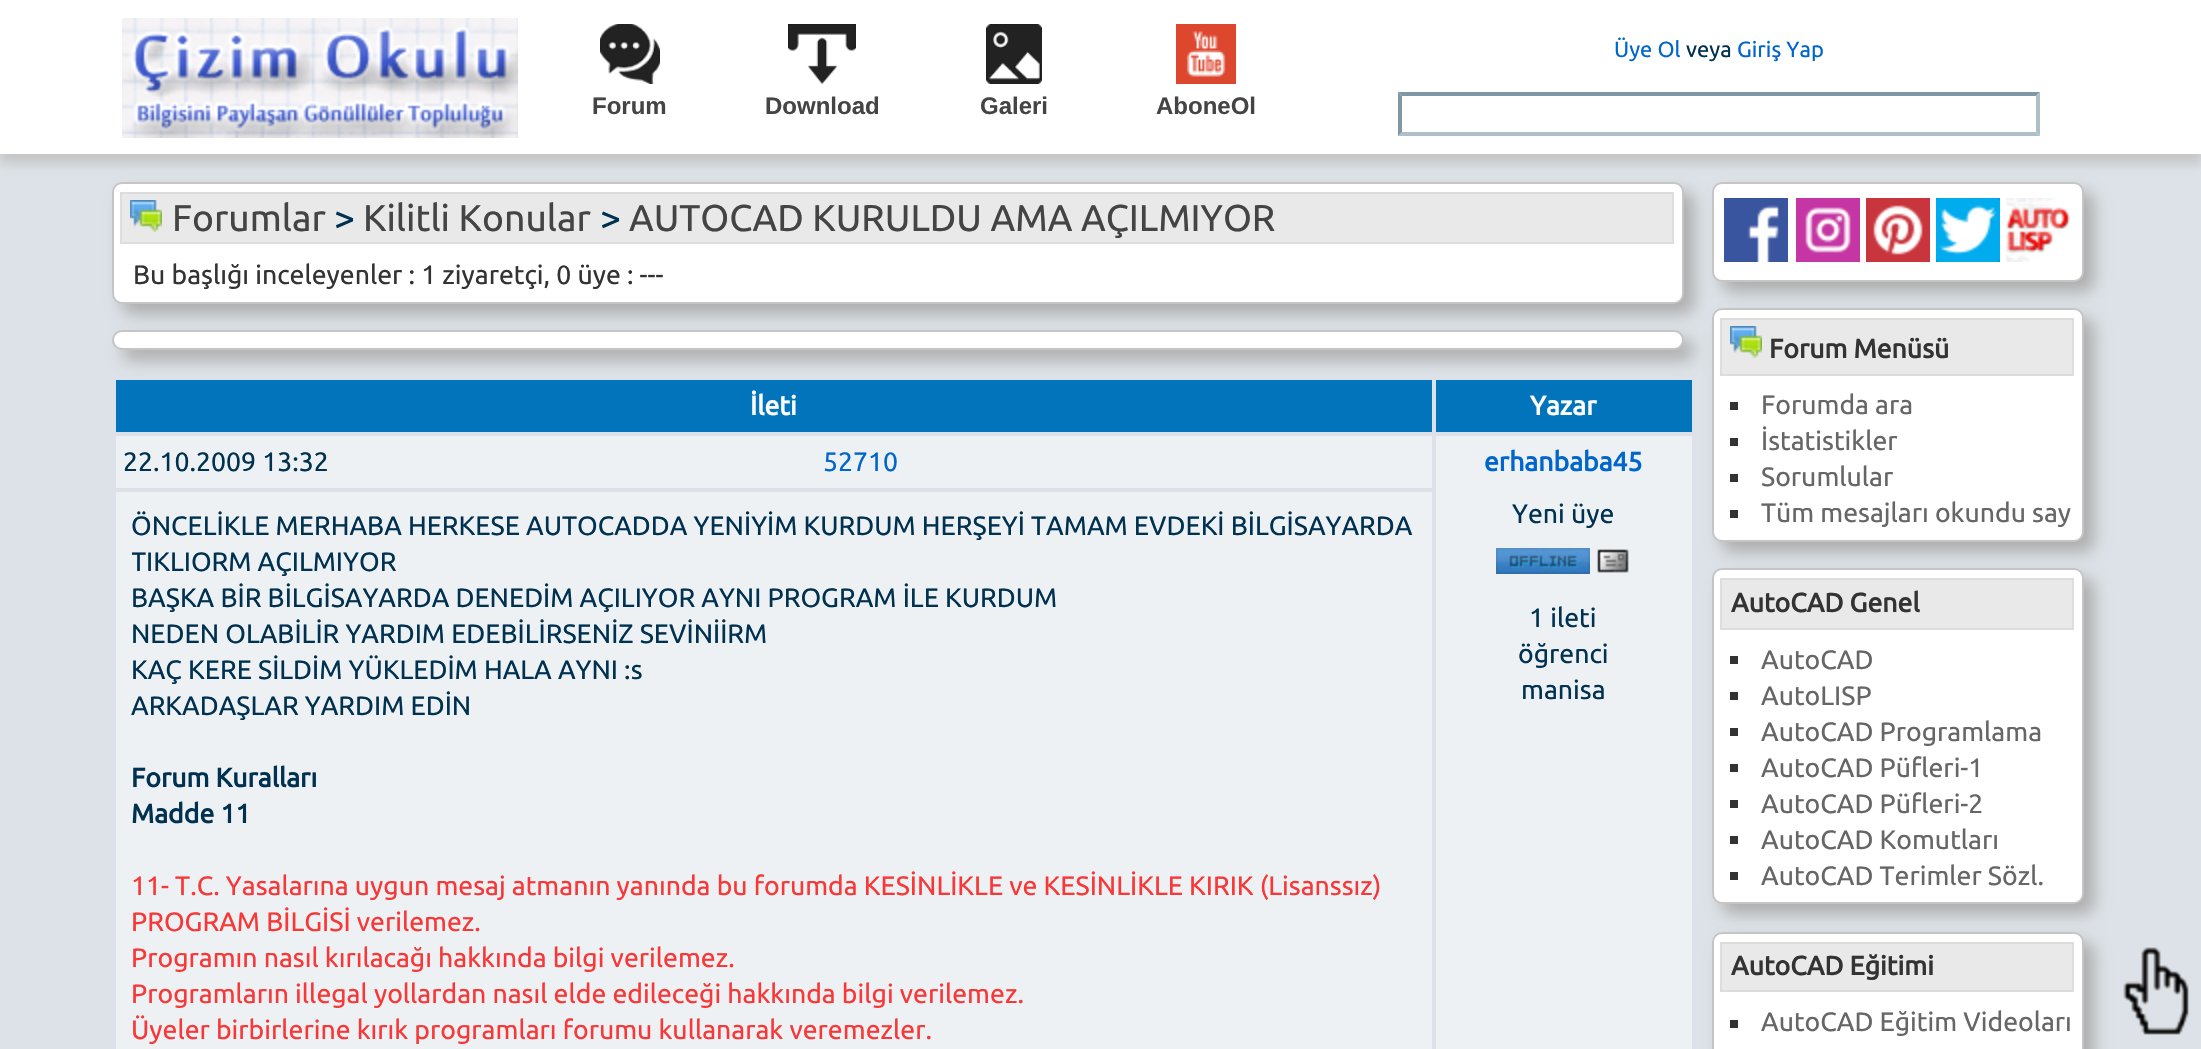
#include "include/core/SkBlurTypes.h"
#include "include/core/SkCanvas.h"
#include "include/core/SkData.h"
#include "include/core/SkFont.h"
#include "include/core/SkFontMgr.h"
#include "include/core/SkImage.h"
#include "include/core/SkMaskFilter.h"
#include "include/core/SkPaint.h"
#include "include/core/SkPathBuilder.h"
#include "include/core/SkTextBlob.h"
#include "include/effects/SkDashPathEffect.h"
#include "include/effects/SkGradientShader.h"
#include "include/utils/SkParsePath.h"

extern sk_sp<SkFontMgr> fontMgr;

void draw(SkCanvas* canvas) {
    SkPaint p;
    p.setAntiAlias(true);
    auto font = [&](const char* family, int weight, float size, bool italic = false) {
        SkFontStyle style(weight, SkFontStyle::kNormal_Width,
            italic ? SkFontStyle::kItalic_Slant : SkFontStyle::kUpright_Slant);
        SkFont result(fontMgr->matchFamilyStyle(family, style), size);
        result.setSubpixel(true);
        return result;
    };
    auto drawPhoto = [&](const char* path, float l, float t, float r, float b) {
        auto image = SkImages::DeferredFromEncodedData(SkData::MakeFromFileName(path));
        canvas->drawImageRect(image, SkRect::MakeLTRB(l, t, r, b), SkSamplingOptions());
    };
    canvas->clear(0xFFDCE2E7);
    p.setColor(0xFFC7C7C7);
    p.setMaskFilter(SkMaskFilter::MakeBlur(kNormal_SkBlurStyle, 5));
    canvas->drawRect(SkRect::MakeLTRB(0, 10, 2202, 164), p);
    p.setMaskFilter(nullptr);
    p.setColor(0xFFFFFFFF);
    canvas->drawRect(SkRect::MakeLTRB(0, 0, 2201, 154), p);
    drawPhoto("media/1.png", 122, 18, 518, 138);
    auto font1 = font("Ubuntu", 400, 22);
    p.setColor(0xFF0066CC);
    canvas->drawString("Üye Ol", 1614, 57, font1, p);
    p.setColor(0xFF003150);
    canvas->drawString("veya", 1686, 57, font1, p);
    p.setColor(0xFF0066CC);
    canvas->drawString("Giriş Yap", 1737, 57, font1, p);
    drawPhoto("media/2.png", 600, 24, 660, 84);
    drawPhoto("media/3.png", 788, 24, 856, 84);
    drawPhoto("media/4.png", 986, 24, 1042, 84);
    drawPhoto("media/5.png", 1176, 24, 1236, 84);
    auto font2 = font("Liberation Sans", 700, 24);
    p.setColor(0xFF444444);
    {
        const struct { const char* s; float x, y; } items[] = {
            {"Forum", 592, 114},
            {"Download", 765, 114},
            {"Galeri", 980, 114},
            {"AboneOl", 1156, 114},
        };
        for (auto [s, x, y] : items) {
            canvas->drawString(s, x, y, font2, p);
        }
    }
    p.setColor(0xFF7F98A7);
    canvas->drawPath(SkPathBuilder().moveTo(1398, 92).lineTo(2040, 92).lineTo(2036, 96).lineTo(1402, 96).close().detach(), p);
    p.setColor(0xFFAFBFC8);
    canvas->drawPath(SkPathBuilder().moveTo(2040, 92).lineTo(2040, 136).lineTo(2036, 132).lineTo(2036, 96).close().detach(), p);
    canvas->drawPath(SkPathBuilder().moveTo(2040, 136).lineTo(1398, 136).lineTo(1402, 132).lineTo(2036, 132).close().detach(), p);
    p.setColor(0xFF7F98A7);
    canvas->drawPath(SkPathBuilder().moveTo(1398, 136).lineTo(1398, 92).lineTo(1402, 96).lineTo(1402, 132).close().detach(), p);
    p.setColor(0xFFADADAD);
    p.setMaskFilter(SkMaskFilter::MakeBlur(kNormal_SkBlurStyle, 8));
    canvas->drawRoundRect(SkRect::MakeLTRB(1722, 192, 2094, 292), 10, 10, p);
    p.setMaskFilter(nullptr);
    p.setColor(0xFFFFFFFF);
    canvas->drawRoundRect(SkRect::MakeLTRB(1713, 183, 2083, 281), 9, 9, p);
    p.setStyle(SkPaint::kStroke_Style);
    p.setStrokeWidth(2);
    p.setColor(0xFFC5C5C5);
    canvas->drawRoundRect(SkRect::MakeLTRB(1713, 183, 2083, 281), 9, 9, p);
    p.setStyle(SkPaint::kFill_Style);
    p.setColor(0xFFADADAD);
    p.setMaskFilter(SkMaskFilter::MakeBlur(kNormal_SkBlurStyle, 8));
    canvas->drawRoundRect(SkRect::MakeLTRB(1722, 318, 2094, 552), 10, 10, p);
    p.setMaskFilter(nullptr);
    p.setColor(0xFFFFFFFF);
    canvas->drawRoundRect(SkRect::MakeLTRB(1713, 309, 2083, 541), 9, 9, p);
    p.setStyle(SkPaint::kStroke_Style);
    p.setColor(0xFFC5C5C5);
    canvas->drawRoundRect(SkRect::MakeLTRB(1713, 309, 2083, 541), 9, 9, p);
    p.setStyle(SkPaint::kFill_Style);
    p.setColor(0xFFADADAD);
    p.setMaskFilter(SkMaskFilter::MakeBlur(kNormal_SkBlurStyle, 8));
    canvas->drawRoundRect(SkRect::MakeLTRB(122, 192, 1694, 314), 10, 10, p);
    p.setMaskFilter(nullptr);
    p.setColor(0xFFFFFFFF);
    canvas->drawRoundRect(SkRect::MakeLTRB(113, 183, 1683, 303), 9, 9, p);
    p.setStyle(SkPaint::kStroke_Style);
    p.setColor(0xFFC5C5C5);
    canvas->drawRoundRect(SkRect::MakeLTRB(113, 183, 1683, 303), 9, 9, p);
    p.setStyle(SkPaint::kFill_Style);
    p.setColor(0xFFE9E9E9);
    canvas->drawRect(SkRect::MakeLTRB(121, 193, 1673, 243), p);
    p.setStyle(SkPaint::kStroke_Style);
    p.setColor(0xFFDDDDDD);
    canvas->drawRect(SkRect::MakeLTRB(121, 193, 1673, 243), p);
    drawPhoto("media/6.png", 130, 200, 162, 232);
    auto font3 = font("Ubuntu", 400, 37.25f);
    p.setStyle(SkPaint::kFill_Style);
    p.setColor(0xFF444444);
    canvas->drawString("Forumlar", 172, 231, font3, p);
    p.setColor(0xFF003150);
    canvas->drawString(">", 334, 231, font3, p);
    p.setColor(0xFF444444);
    canvas->drawString("Kilitli Konular", 363, 231, font3, p);
    p.setColor(0xFF003150);
    canvas->drawString(">", 600, 231, font3, p);
    p.setColor(0xFF444444);
    canvas->drawString("AUTOCAD KURULDU AMA AÇILMIYOR", 629, 231, font3, p);
    auto font4 = font("Ubuntu", 400, 26.6f);
    p.setColor(0xFF333333);
    canvas->drawString("Bu başlığı inceleyenler : 1 ziyaretçi, 0 üye : ---", 133, 284, font4, p);
    p.setColor(0xFFADADAD);
    p.setMaskFilter(SkMaskFilter::MakeBlur(kNormal_SkBlurStyle, 8));
    canvas->drawRoundRect(SkRect::MakeLTRB(122, 340, 1694, 360), 10, 10, p);
    p.setMaskFilter(nullptr);
    p.setColor(0xFFFFFFFF);
    canvas->drawRoundRect(SkRect::MakeLTRB(113, 331, 1683, 349), 9, 9, p);
    p.setStyle(SkPaint::kStroke_Style);
    p.setColor(0xFFC5C5C5);
    canvas->drawRoundRect(SkRect::MakeLTRB(113, 331, 1683, 349), 9, 9, p);
    p.setStyle(SkPaint::kFill_Style);
    p.setColor(0xFF0174BB);
    canvas->drawRect(SkRect::MakeLTRB(116, 380, 1432, 432), p);
    auto font5 = font("Ubuntu", 700, 26.6f);
    p.setColor(0xFFFFFFFF);
    canvas->drawString("İleti", 750, 415, font5, p);
    p.setColor(0xFF0174BB);
    canvas->drawRect(SkRect::MakeLTRB(1436, 380, 1692, 432), p);
    p.setColor(0xFFFFFFFF);
    canvas->drawString("Yazar", 1530, 415, font5, p);
    p.setColor(0xFFEDF1F3);
    canvas->drawRect(SkRect::MakeLTRB(116, 436, 1432, 488), p);
    p.setColor(0xFF003150);
    canvas->drawString("22.10.2009 13:32", 123, 471, font4, p);
    p.setColor(0xFF0066CC);
    canvas->drawString("52710", 823, 471, font4, p);
    p.setColor(0xFFEDF1F3);
    canvas->drawRect(SkRect::MakeLTRB(1436, 436, 1692, 1049), p);
    p.setColor(0xFF0066CC);
    canvas->drawString("erhanbaba45", 1484, 471, font5, p);
    p.setColor(0xFF003150);
    canvas->drawString("Yeni üye", 1512, 523, font4, p);
    drawPhoto("media/7.png", 1496, 548, 1590, 574);
    drawPhoto("media/8.png", 1597, 549, 1629, 573);
    {
        const struct { const char* s; float x, y; } items[] = {
            {"1 ileti", 1529, 627},
            {"öğrenci", 1518, 663},
            {"manisa", 1521, 699},
        };
        for (auto [s, x, y] : items) {
            canvas->drawString(s, x, y, font4, p);
        }
    }
    p.setColor(0xFFEDF1F3);
    canvas->drawRect(SkRect::MakeLTRB(116, 492, 1432, 1049), p);
    p.setColor(0xFF003150);
    canvas->drawString("ÖNCELİKLE MERHABA HERKESE AUTOCADDA YENİYİM KURDUM HERŞEYİ TAMAM EVDEKİ BİLGİSAYARDA", 131, 535, font4, p);
    canvas->save();
    canvas->clipRect(SkRect::MakeLTRB(132, 508, 1422, 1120));
    canvas->drawString("TIKLIORM AÇILMIYOR", 131, 571, font4, p);
    canvas->restore();
    {
        const struct { const char* s; float x, y; } items[] = {
            {"BAŞKA BİR BİLGİSAYARDA DENEDİM AÇILIYOR AYNI PROGRAM İLE KURDUM", 131, 607},
            {"NEDEN OLABİLİR YARDIM EDEBİLİRSENİZ SEVİNİİRM", 131, 643},
            {"KAÇ KERE SİLDİM YÜKLEDİM HALA AYNI :s", 131, 679},
            {"ARKADAŞLAR YARDIM EDİN", 131, 715},
        };
        for (auto [s, x, y] : items) {
            canvas->drawString(s, x, y, font4, p);
        }
    }
    canvas->drawString("Forum Kuralları", 131, 787, font5, p);
    canvas->drawString("Madde 11", 131, 823, font5, p);
    p.setColor(0xFFF93737);
    {
        const struct { const char* s; float x, y; } items[] = {
            {"11- T.C. Yasalarına uygun mesaj atmanın yanında bu forumda KESİNLİKLE ve KESİNLİKLE KIRIK (Lisanssız)", 131, 895},
            {"PROGRAM BİLGİSİ verilemez.", 131, 931},
            {"Programın nasıl kırılacağı hakkında bilgi verilemez.", 131, 967},
            {"Programların illegal yollardan nasıl elde edileceği hakkında bilgi verilemez.", 131, 1003},
            {"Üyeler birbirlerine kırık programları forumu kullanarak veremezler.", 131, 1039},
        };
        for (auto [s, x, y] : items) {
            canvas->drawString(s, x, y, font4, p);
        }
    }
    drawPhoto("media/9.png", 1724, 198, 1788, 262);
    drawPhoto("media/10.png", 1796, 198, 1860, 262);
    drawPhoto("media/11.png", 1866, 198, 1930, 262);
    drawPhoto("media/12.png", 1936, 198, 2000, 262);
    drawPhoto("media/13.png", 2006, 198, 2070, 262);
    p.setColor(0xFFE9E9E9);
    canvas->drawRect(SkRect::MakeLTRB(1721, 319, 2073, 375), p);
    p.setStyle(SkPaint::kStroke_Style);
    p.setColor(0xFFDDDDDD);
    canvas->drawRect(SkRect::MakeLTRB(1721, 319, 2073, 375), p);
    drawPhoto("media/6.png", 1730, 326, 1762, 358);
    p.setStyle(SkPaint::kFill_Style);
    p.setColor(0xFF333333);
    canvas->drawString("Forum Menüsü", 1769, 358, font5, p);
    canvas->drawRect(SkRect::MakeLTRB(1730, 402, 1738, 410), p);
    p.setColor(0xFF666666);
    canvas->drawString("Forumda ara", 1761, 414, font4, p);
    p.setColor(0xFF333333);
    canvas->drawRect(SkRect::MakeLTRB(1730, 438, 1738, 446), p);
    p.setColor(0xFF666666);
    canvas->drawString("İstatistikler", 1761, 450, font4, p);
    p.setColor(0xFF333333);
    canvas->drawRect(SkRect::MakeLTRB(1730, 474, 1738, 482), p);
    p.setColor(0xFF666666);
    canvas->drawString("Sorumlular", 1761, 486, font4, p);
    p.setColor(0xFF333333);
    canvas->drawRect(SkRect::MakeLTRB(1730, 510, 1738, 518), p);
    p.setColor(0xFF666666);
    canvas->drawString("Tüm mesajları okundu say", 1761, 522, font4, p);
    p.setColor(0xFFADADAD);
    p.setMaskFilter(SkMaskFilter::MakeBlur(kNormal_SkBlurStyle, 8));
    canvas->drawRoundRect(SkRect::MakeLTRB(1722, 578, 2094, 914), 10, 10, p);
    p.setMaskFilter(nullptr);
    p.setColor(0xFFFFFFFF);
    canvas->drawRoundRect(SkRect::MakeLTRB(1713, 569, 2083, 903), 9, 9, p);
    p.setStyle(SkPaint::kStroke_Style);
    p.setColor(0xFFC5C5C5);
    canvas->drawRoundRect(SkRect::MakeLTRB(1713, 569, 2083, 903), 9, 9, p);
    p.setStyle(SkPaint::kFill_Style);
    p.setColor(0xFFE9E9E9);
    canvas->drawRect(SkRect::MakeLTRB(1721, 579, 2073, 629), p);
    p.setStyle(SkPaint::kStroke_Style);
    p.setColor(0xFFDDDDDD);
    canvas->drawRect(SkRect::MakeLTRB(1721, 579, 2073, 629), p);
    p.setStyle(SkPaint::kFill_Style);
    p.setColor(0xFF333333);
    canvas->drawString("AutoCAD Genel", 1731, 612, font5, p);
    canvas->drawRect(SkRect::MakeLTRB(1730, 656, 1738, 664), p);
    p.setColor(0xFF666666);
    canvas->drawString("AutoCAD", 1761, 669, font4, p);
    p.setColor(0xFF333333);
    canvas->drawRect(SkRect::MakeLTRB(1730, 692, 1738, 700), p);
    p.setColor(0xFF666666);
    canvas->drawString("AutoLISP", 1761, 705, font4, p);
    p.setColor(0xFF333333);
    canvas->drawRect(SkRect::MakeLTRB(1730, 728, 1738, 736), p);
    p.setColor(0xFF666666);
    canvas->drawString("AutoCAD Programlama", 1761, 741, font4, p);
    p.setColor(0xFF333333);
    canvas->drawRect(SkRect::MakeLTRB(1730, 764, 1738, 772), p);
    p.setColor(0xFF666666);
    canvas->drawString("AutoCAD Püfleri-1", 1761, 777, font4, p);
    p.setColor(0xFF333333);
    canvas->drawRect(SkRect::MakeLTRB(1730, 800, 1738, 808), p);
    p.setColor(0xFF666666);
    canvas->drawString("AutoCAD Püfleri-2", 1761, 813, font4, p);
    p.setColor(0xFF333333);
    canvas->drawRect(SkRect::MakeLTRB(1730, 836, 1738, 844), p);
    p.setColor(0xFF666666);
    canvas->drawString("AutoCAD Komutları", 1761, 849, font4, p);
    p.setColor(0xFF333333);
    canvas->drawRect(SkRect::MakeLTRB(1730, 872, 1738, 880), p);
    p.setColor(0xFF666666);
    canvas->drawString("AutoCAD Terimler Sözl.", 1761, 885, font4, p);
    p.setColor(0xFFADADAD);
    p.setMaskFilter(SkMaskFilter::MakeBlur(kNormal_SkBlurStyle, 8));
    canvas->drawRoundRect(SkRect::MakeLTRB(1722, 942, 2094, 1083), 10, 10, p);
    p.setMaskFilter(nullptr);
    p.setColor(0xFFFFFFFF);
    canvas->drawRoundRect(SkRect::MakeLTRB(1713, 933, 2083, 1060), 9, 9, p);
    p.setStyle(SkPaint::kStroke_Style);
    p.setColor(0xFFC5C5C5);
    canvas->drawRoundRect(SkRect::MakeLTRB(1713, 933, 2083, 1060), 9, 9, p);
    p.setStyle(SkPaint::kFill_Style);
    p.setColor(0xFFE9E9E9);
    canvas->drawRect(SkRect::MakeLTRB(1721, 943, 2073, 991), p);
    p.setStyle(SkPaint::kStroke_Style);
    p.setColor(0xFFDDDDDD);
    canvas->drawRect(SkRect::MakeLTRB(1721, 943, 2073, 991), p);
    p.setStyle(SkPaint::kFill_Style);
    p.setColor(0xFF333333);
    canvas->drawString("AutoCAD Eğitimi", 1731, 975, font5, p);
    canvas->drawRect(SkRect::MakeLTRB(1730, 1020, 1738, 1028), p);
    p.setColor(0xFF666666);
    canvas->drawString("AutoCAD Eğitim Videoları", 1761, 1031, font4, p);
    drawPhoto("media/14.png", 2123, 947, 2189, 1035);
}
